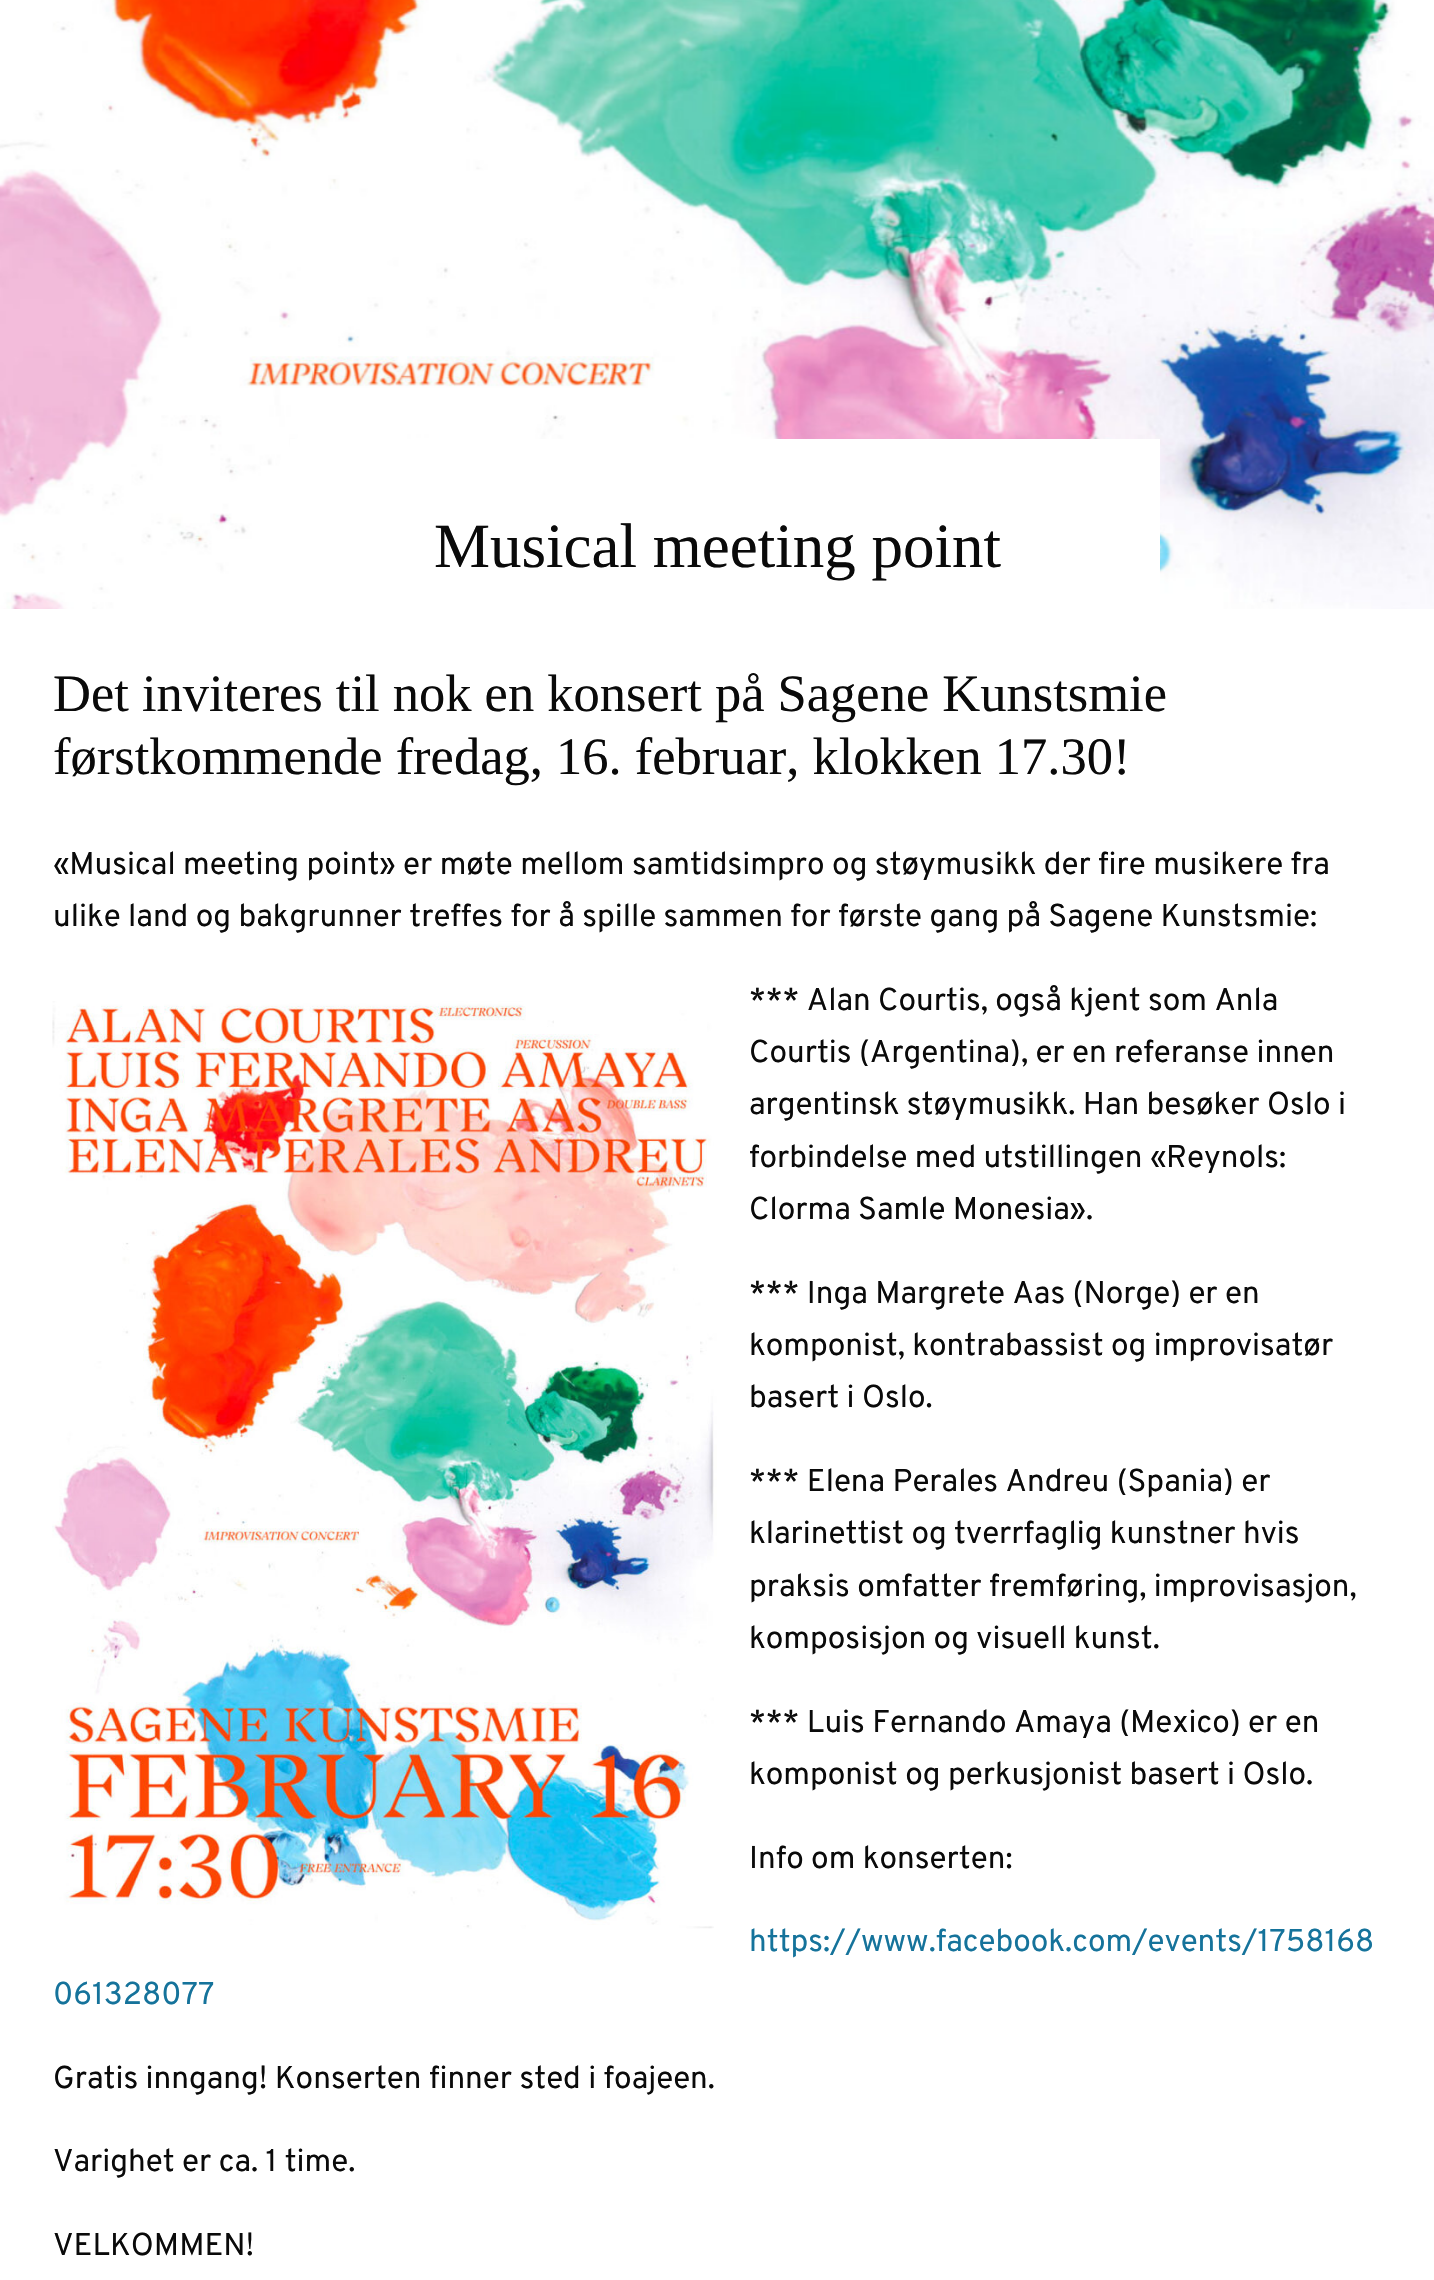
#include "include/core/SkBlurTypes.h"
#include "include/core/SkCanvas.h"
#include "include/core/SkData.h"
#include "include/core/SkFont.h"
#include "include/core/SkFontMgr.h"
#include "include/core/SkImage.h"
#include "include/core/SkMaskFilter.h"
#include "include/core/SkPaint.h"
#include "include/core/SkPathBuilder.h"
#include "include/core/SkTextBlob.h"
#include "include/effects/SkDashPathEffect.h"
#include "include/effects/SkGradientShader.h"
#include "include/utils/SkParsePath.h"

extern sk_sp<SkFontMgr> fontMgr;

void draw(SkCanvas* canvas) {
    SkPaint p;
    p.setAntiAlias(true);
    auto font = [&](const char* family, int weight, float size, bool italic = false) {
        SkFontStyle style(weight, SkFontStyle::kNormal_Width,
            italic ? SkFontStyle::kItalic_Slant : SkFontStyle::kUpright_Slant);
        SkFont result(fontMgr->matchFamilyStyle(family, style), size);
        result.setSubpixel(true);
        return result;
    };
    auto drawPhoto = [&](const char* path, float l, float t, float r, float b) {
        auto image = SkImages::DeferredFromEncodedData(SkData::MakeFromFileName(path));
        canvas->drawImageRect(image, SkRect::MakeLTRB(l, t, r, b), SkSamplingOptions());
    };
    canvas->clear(0xFFFFFFFF);
    drawPhoto("media/1.png", 0, 0, 1434, 609);
    p.setColor(0xFFFFFFFF);
    canvas->drawRect(SkRect::MakeLTRB(290, 439, 1160, 609), p);
    auto font1 = font("Liberation Serif", 400, 63);
    p.setColor(0xFF0A0A0A);
    canvas->drawString("Musical meeting point", 434, 567, font1, p);
    auto font2 = font("Liberation Serif", 400, 52.5f);
    canvas->drawString("Det inviteres til nok en konsert på Sagene Kunstsmie", 53, 711, font2, p);
    canvas->drawString("førstkommende fredag, 16. februar, klokken 17.30!", 53, 774, font2, p);
    auto font3 = font("Overpass", 400, 31.5f);
    canvas->drawString("«Musical meeting point» er møte mellom samtidsimpro og støymusikk der fire musikere fra", 53, 874, font3, p);
    canvas->drawString("ulike land og bakgrunner treffes for å spille sammen for første gang på Sagene Kunstsmie:", 53, 926, font3, p);
    drawPhoto("media/2.png", 52, 1001, 717, 1929);
    {
        const struct { const char* s; float x, y; } items[] = {
            {"*** Alan Courtis, også kjent som Anla", 749, 1010},
            {"Courtis (Argentina), er en referanse innen", 749, 1062},
            {"argentinsk støymusikk. Han besøker Oslo i", 749, 1114},
            {"forbindelse med utstillingen «Reynols:", 749, 1167},
            {"Clorma Samle Monesia».", 749, 1219},
            {"*** Inga Margrete Aas (Norge) er en", 749, 1303},
            {"komponist, kontrabassist og improvisatør", 749, 1355},
            {"basert i Oslo.", 749, 1407},
            {"*** Elena Perales Andreu (Spania) er", 749, 1491},
            {"klarinettist og tverrfaglig kunstner hvis", 749, 1543},
            {"praksis omfatter fremføring, improvisasjon,", 749, 1596},
            {"komposisjon og visuell kunst.", 749, 1648},
            {"*** Luis Fernando Amaya (Mexico) er en", 749, 1732},
            {"komponist og perkusjonist basert i Oslo.", 749, 1784},
            {"Info om konserten:", 749, 1868},
        };
        for (auto [s, x, y] : items) {
            canvas->drawString(s, x, y, font3, p);
        }
    }
    p.setColor(0xFF15739B);
    canvas->drawString("https://www.facebook.com/events/1758168", 749, 1951, font3, p);
    canvas->drawString("061328077", 53, 2004, font3, p);
    p.setColor(0xFF0A0A0A);
    {
        const struct { const char* s; float x, y; } items[] = {
            {"Gratis inngang! Konserten finner sted i foajeen.", 53, 2088},
            {"Varighet er ca. 1 time.", 53, 2171},
            {"VELKOMMEN!", 53, 2255},
        };
        for (auto [s, x, y] : items) {
            canvas->drawString(s, x, y, font3, p);
        }
    }
}
